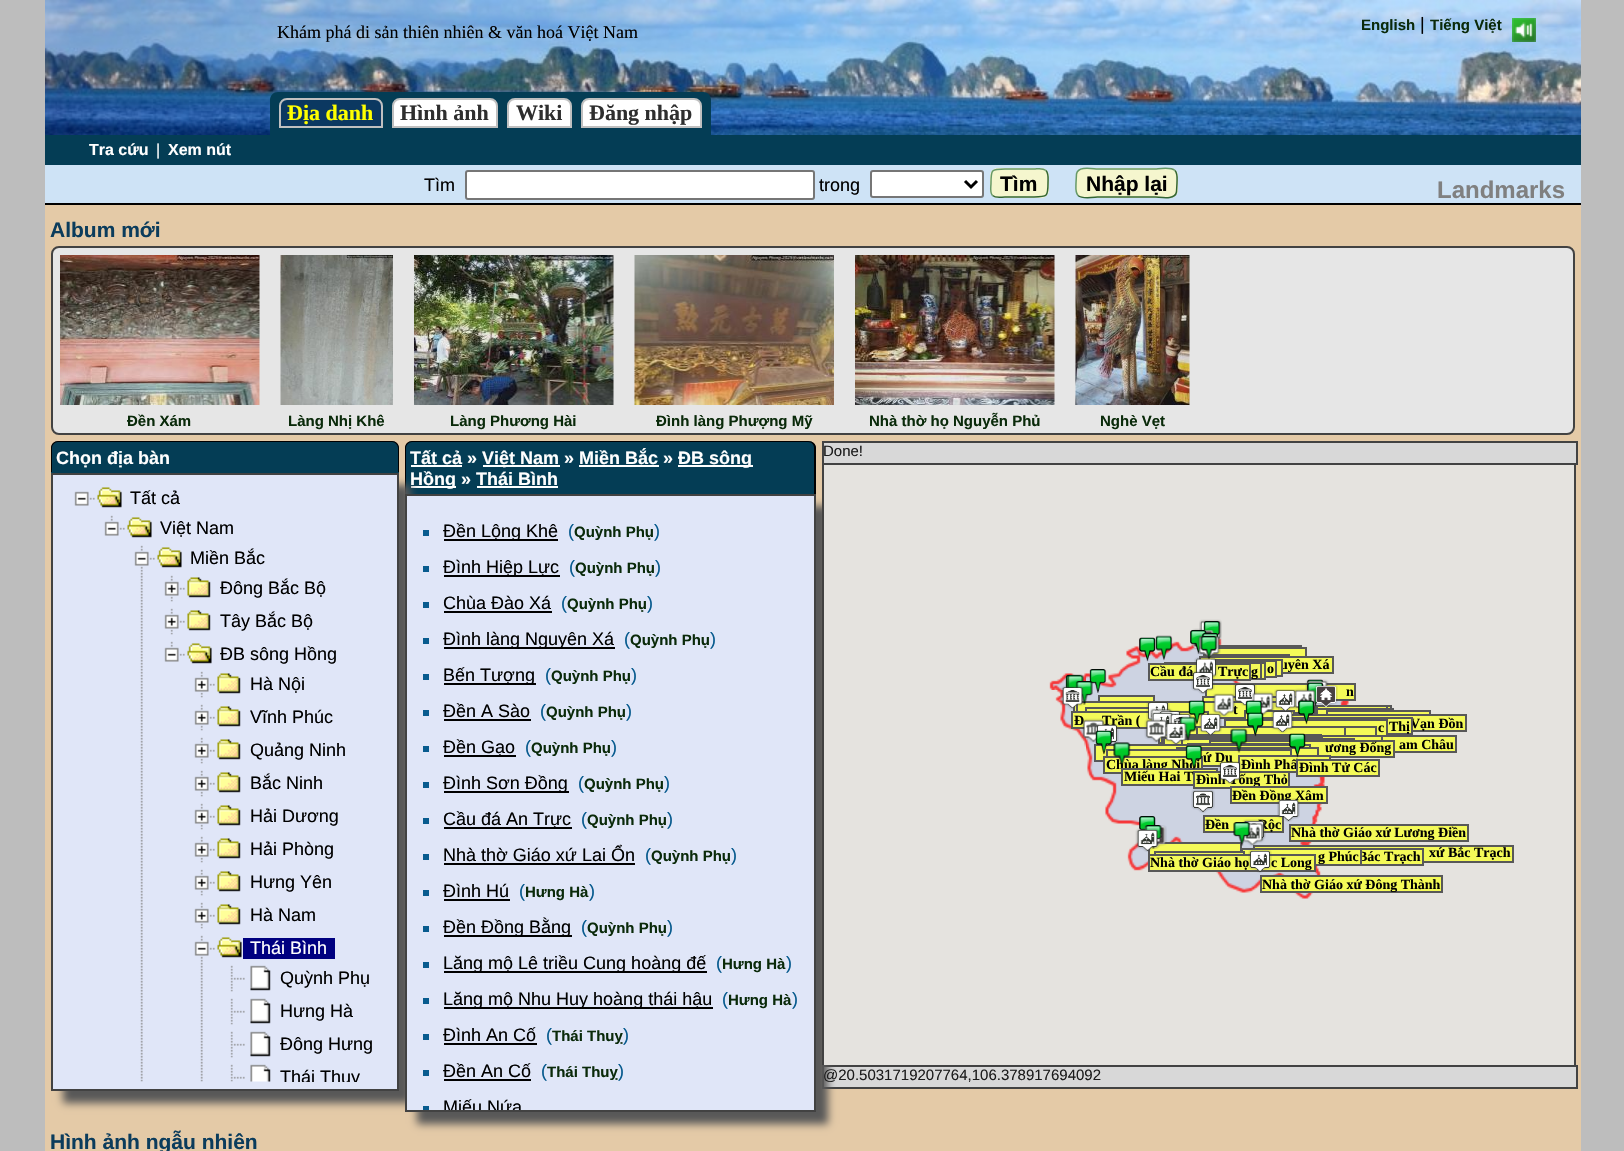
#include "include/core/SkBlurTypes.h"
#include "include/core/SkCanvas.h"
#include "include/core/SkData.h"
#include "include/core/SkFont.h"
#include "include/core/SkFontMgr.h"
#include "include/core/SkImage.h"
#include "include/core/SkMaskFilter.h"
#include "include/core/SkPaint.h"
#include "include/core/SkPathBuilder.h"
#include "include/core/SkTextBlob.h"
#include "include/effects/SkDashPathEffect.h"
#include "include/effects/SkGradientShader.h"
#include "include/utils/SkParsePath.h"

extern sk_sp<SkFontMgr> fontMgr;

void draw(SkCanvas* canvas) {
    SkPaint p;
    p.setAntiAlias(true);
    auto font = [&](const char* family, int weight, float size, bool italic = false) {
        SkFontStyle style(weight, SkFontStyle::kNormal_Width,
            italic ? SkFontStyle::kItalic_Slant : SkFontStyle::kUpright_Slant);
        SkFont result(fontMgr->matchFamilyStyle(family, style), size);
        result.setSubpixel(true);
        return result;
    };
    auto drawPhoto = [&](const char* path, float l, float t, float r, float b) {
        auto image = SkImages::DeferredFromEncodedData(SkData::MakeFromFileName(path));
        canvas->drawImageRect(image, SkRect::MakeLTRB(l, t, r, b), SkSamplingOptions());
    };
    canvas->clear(0xFFBDBDBD);
    p.setColor(0xFFE4CAA7);
    canvas->drawRect(SkRect::MakeLTRB(45, 205, 1581, 1151), p);
    drawPhoto("media/1.png", 45, 0, 1581, 135);
    auto font1 = font("Liberation Serif", 400, 18);
    p.setColor(0xFF000000);
    canvas->drawString("Khám phá di sản thiên nhiên & văn hoá Việt Nam", 277, 38, font1, p);
    auto font2 = font("Liberation Sans", 700, 15);
    p.setColor(0xFF0A2A0A);
    canvas->drawString("English", 1361, 30, font2, p);
    auto font3 = font("Liberation Sans", 400, 18);
    p.setColor(0xFF000000);
    canvas->drawString("|", 1420, 30, font3, p);
    p.setColor(0xFF0A2A0A);
    canvas->drawString("Tiếng Việt", 1430, 30, font2, p);
    drawPhoto("media/2.png", 1512, 18, 1536, 42);
    p.setColor(0xFF043D55);
    canvas->drawPath(SkPathBuilder().moveTo(278, 92).lineTo(703, 92).cubicTo(707.5f, 92, 711, 95.5f, 711, 100).lineTo(711, 135).lineTo(270, 135).lineTo(270, 100).cubicTo(270, 95.5f, 273.5f, 92, 278, 92).close().detach(), p);
    p.setColor(0xFF0B3861);
    canvas->drawPath(SkPathBuilder().moveTo(287, 99).lineTo(375, 99).cubicTo(379, 99, 382, 102, 382, 106).lineTo(382, 127).lineTo(280, 127).lineTo(280, 106).cubicTo(280, 102, 283, 99, 287, 99).close().detach(), p);
    p.setStyle(SkPaint::kStroke_Style);
    p.setStrokeWidth(2);
    p.setColor(0xFFC0C0C0);
    canvas->drawPath(SkPathBuilder().moveTo(287, 99).lineTo(375, 99).cubicTo(379, 99, 382, 102, 382, 106).lineTo(382, 127).lineTo(280, 127).lineTo(280, 106).cubicTo(280, 102, 283, 99, 287, 99).close().detach(), p);
    auto font4 = font("Liberation Serif", 700, 22);
    p.setStyle(SkPaint::kFill_Style);
    p.setColor(0xFFFFFF00);
    canvas->drawString("Địa danh", 287, 120, font4, p);
    p.setColor(0xFFFFFFFF);
    canvas->drawPath(SkPathBuilder().moveTo(400, 99).lineTo(490, 99).cubicTo(494, 99, 497, 102, 497, 106).lineTo(497, 127).lineTo(393, 127).lineTo(393, 106).cubicTo(393, 102, 396, 99, 400, 99).close().detach(), p);
    p.setStyle(SkPaint::kStroke_Style);
    p.setColor(0xFFC0C0C0);
    canvas->drawPath(SkPathBuilder().moveTo(400, 99).lineTo(490, 99).cubicTo(494, 99, 497, 102, 497, 106).lineTo(497, 127).lineTo(393, 127).lineTo(393, 106).cubicTo(393, 102, 396, 99, 400, 99).close().detach(), p);
    p.setStyle(SkPaint::kFill_Style);
    p.setColor(0xFF2E2E2E);
    canvas->drawString("Hình ảnh", 400, 120, font4, p);
    p.setColor(0xFFFFFFFF);
    canvas->drawPath(SkPathBuilder().moveTo(515, 99).lineTo(564, 99).cubicTo(568, 99, 571, 102, 571, 106).lineTo(571, 127).lineTo(508, 127).lineTo(508, 106).cubicTo(508, 102, 511, 99, 515, 99).close().detach(), p);
    p.setStyle(SkPaint::kStroke_Style);
    p.setColor(0xFFC0C0C0);
    canvas->drawPath(SkPathBuilder().moveTo(515, 99).lineTo(564, 99).cubicTo(568, 99, 571, 102, 571, 106).lineTo(571, 127).lineTo(508, 127).lineTo(508, 106).cubicTo(508, 102, 511, 99, 515, 99).close().detach(), p);
    p.setStyle(SkPaint::kFill_Style);
    p.setColor(0xFF2E2E2E);
    canvas->drawString("Wiki", 516, 120, font4, p);
    p.setColor(0xFFFFFFFF);
    canvas->drawPath(SkPathBuilder().moveTo(589, 99).lineTo(694, 99).cubicTo(698, 99, 701, 102, 701, 106).lineTo(701, 127).lineTo(582, 127).lineTo(582, 106).cubicTo(582, 102, 585, 99, 589, 99).close().detach(), p);
    p.setStyle(SkPaint::kStroke_Style);
    p.setColor(0xFFC0C0C0);
    canvas->drawPath(SkPathBuilder().moveTo(589, 99).lineTo(694, 99).cubicTo(698, 99, 701, 102, 701, 106).lineTo(701, 127).lineTo(582, 127).lineTo(582, 106).cubicTo(582, 102, 585, 99, 589, 99).close().detach(), p);
    p.setStyle(SkPaint::kFill_Style);
    p.setColor(0xFF2E2E2E);
    canvas->drawString("Đăng nhập", 589, 120, font4, p);
    p.setColor(0xFF043D55);
    canvas->drawRect(SkRect::MakeLTRB(45, 135, 1581, 165), p);
    auto font5 = font("Liberation Sans", 700, 16);
    p.setColor(0xFFFFFFFF);
    canvas->drawString("Tra cứu", 89, 155, font5, p);
    auto font6 = font("Liberation Sans", 400, 16);
    canvas->drawString("|", 156, 155, font6, p);
    canvas->drawString("Xem nút", 168, 155, font5, p);
    p.setColor(0xFFCEE3F6);
    canvas->drawRect(SkRect::MakeLTRB(45, 165, 1581, 203), p);
    p.setColor(0xFF000000);
    canvas->drawRect(SkRect::MakeLTRB(45, 203, 1581, 205), p);
    canvas->drawString("Tìm", 424, 191, font3, p);
    p.setColor(0xFFFFFFFF);
    canvas->drawRoundRect(SkRect::MakeLTRB(466, 171, 814, 199), 2, 2, p);
    p.setStyle(SkPaint::kStroke_Style);
    p.setColor(0xFF767676);
    canvas->drawRoundRect(SkRect::MakeLTRB(466, 171, 814, 199), 2, 2, p);
    p.setStyle(SkPaint::kFill_Style);
    p.setColor(0xFF000000);
    canvas->drawString("trong", 819, 191, font3, p);
    p.setColor(0xFFFFFFFF);
    canvas->drawRoundRect(SkRect::MakeLTRB(871, 171, 983, 197), 2, 2, p);
    p.setStyle(SkPaint::kStroke_Style);
    p.setColor(0xFF767676);
    canvas->drawRoundRect(SkRect::MakeLTRB(871, 171, 983, 197), 2, 2, p);
    p.setStrokeWidth(3);
    p.setColor(0xFF000000);
    canvas->drawPath(SkPathBuilder().moveTo(965, 181).lineTo(971, 187).lineTo(977, 181).detach(), p);
    p.setStyle(SkPaint::kFill_Style);
    p.setColor(0xFFF5F6CE);
    canvas->drawRoundRect(SkRect::MakeLTRB(990, 168, 1049, 198), 8, 8, p);
    p.setStyle(SkPaint::kStroke_Style);
    p.setStrokeWidth(1.5f);
    p.setColor(0xFF336633);
    canvas->drawPath(SkPathBuilder().moveTo(1046, 170.5f).cubicTo(1049, 174, 1048, 179, 1048, 183).cubicTo(1048, 196.5f, 1047.5f, 197, 1034, 197).lineTo(1005, 197).cubicTo(1001, 197, 996, 198.5f, 992.5f, 195.5f).detach(), p);
    p.setColor(0xFF669966);
    canvas->drawPath(SkPathBuilder().moveTo(992.5f, 195.5f).cubicTo(989.5f, 192, 991, 187, 991, 183).cubicTo(991, 169.5f, 991, 169, 1005, 169).lineTo(1034, 169).cubicTo(1037.5f, 169, 1042.5f, 167.5f, 1046, 170.5f).detach(), p);
    auto font7 = font("Liberation Sans", 700, 21);
    p.setStyle(SkPaint::kFill_Style);
    p.setColor(0xFF000000);
    canvas->drawString("Tìm", 1000, 191, font7, p);
    p.setColor(0xFFF5F6CE);
    canvas->drawRoundRect(SkRect::MakeLTRB(1076, 168, 1178, 198), 8, 8, p);
    p.setStyle(SkPaint::kStroke_Style);
    p.setColor(0xFF336633);
    canvas->drawPath(SkPathBuilder().moveTo(1175, 170.5f).cubicTo(1178, 174, 1177, 179, 1177, 183).lineTo(1176.5f, 192).cubicTo(1175, 200.5f, 1160, 197, 1155.5f, 197).lineTo(1097.5f, 197).cubicTo(1095, 197, 1082.5f, 199.5f, 1078, 195.5f).detach(), p);
    p.setColor(0xFF669966);
    canvas->drawPath(SkPathBuilder().moveTo(1078, 195.5f).cubicTo(1075, 192, 1076, 187, 1076, 183).lineTo(1076.5f, 174).cubicTo(1078, 165.5f, 1093, 169, 1097.5f, 169).lineTo(1155.5f, 169).cubicTo(1158, 169, 1170.5f, 166.5f, 1175, 170.5f).detach(), p);
    p.setStyle(SkPaint::kFill_Style);
    p.setColor(0xFF000000);
    canvas->drawString("Nhập lại", 1086, 191, font7, p);
    auto font8 = font("Liberation Sans", 700, 24);
    p.setColor(0xFF808080);
    canvas->drawString("Landmarks", 1437, 198, font8, p);
    p.setColor(0xFF0B3C5C);
    canvas->drawString("Album mới", 50, 237, font7, p);
    p.setColor(0xFFE6E6E6);
    canvas->drawRoundRect(SkRect::MakeLTRB(52, 247, 1574, 434), 7, 7, p);
    p.setStyle(SkPaint::kStroke_Style);
    p.setStrokeWidth(2);
    p.setColor(0xFF424242);
    canvas->drawRoundRect(SkRect::MakeLTRB(52, 247, 1574, 434), 7, 7, p);
    drawPhoto("media/3.png", 60, 255, 260, 405);
    p.setStyle(SkPaint::kFill_Style);
    p.setColor(0xFF0A2A0A);
    canvas->drawString("Đền Xám", 127, 426, font2, p);
    drawPhoto("media/4.png", 280, 255, 393, 405);
    canvas->drawString("Làng Nhị Khê", 288, 426, font2, p);
    drawPhoto("media/5.png", 414, 255, 614, 405);
    canvas->drawString("Làng Phương Hài", 450, 426, font2, p);
    drawPhoto("media/6.png", 634, 255, 834, 405);
    canvas->drawString("Đình làng Phượng Mỹ", 656, 426, font2, p);
    drawPhoto("media/7.png", 855, 255, 1055, 405);
    canvas->drawString("Nhà thờ họ Nguyễn Phủ", 869, 426, font2, p);
    drawPhoto("media/8.png", 1075, 255, 1190, 405);
    canvas->drawString("Nghè Vẹt", 1100, 426, font2, p);
    p.setColor(0xFF043D55);
    canvas->drawPath(SkPathBuilder().moveTo(59, 441).lineTo(391, 441).cubicTo(395.5f, 441, 399, 444.5f, 399, 449).lineTo(399, 473).lineTo(51, 473).lineTo(51, 449).cubicTo(51, 444.5f, 54.5f, 441, 59, 441).close().detach(), p);
    p.setColor(0xFF000000);
    canvas->drawPath(SkPathBuilder(SkPathFillType::kEvenOdd).moveTo(58, 441).lineTo(392, 441).cubicTo(396, 441, 399, 444, 399, 448).lineTo(399, 472).lineTo(51, 472).lineTo(51, 448).cubicTo(51, 444, 54, 441, 58, 441).close().moveTo(58, 442).lineTo(392, 442).cubicTo(395, 442, 398, 445, 398, 448).lineTo(398, 472).lineTo(52, 472).lineTo(52, 448).cubicTo(52, 445, 55, 442, 58, 442).close().detach(), p);
    auto font9 = font("Liberation Sans", 700, 18);
    p.setColor(0xFFFFFFFF);
    canvas->drawString("Chọn địa bàn", 56, 464, font9, p);
    p.setColor(0xFF043D55);
    canvas->drawPath(SkPathBuilder().moveTo(413, 441).lineTo(808, 441).cubicTo(812.5f, 441, 816, 444.5f, 816, 449).lineTo(816, 494).lineTo(405, 494).lineTo(405, 449).cubicTo(405, 444.5f, 408.5f, 441, 413, 441).close().detach(), p);
    p.setColor(0xFF000000);
    canvas->drawPath(SkPathBuilder(SkPathFillType::kEvenOdd).moveTo(412, 441).lineTo(808, 441).cubicTo(813, 441, 816, 444, 816, 448).lineTo(816, 494).lineTo(405, 494).lineTo(405, 448).cubicTo(405, 444, 408, 441, 412, 441).close().moveTo(412, 442).lineTo(808, 442).cubicTo(812, 442, 814, 445, 814, 448).lineTo(814, 494).lineTo(406, 494).lineTo(406, 448).cubicTo(406, 445, 409, 442, 412, 442).close().detach(), p);
    p.setColor(0xFFFFFFFF);
    canvas->drawRect(SkRect::MakeLTRB(411, 486, 456, 488), p);
    p.setColor(0xFF585858);
    p.setMaskFilter(SkMaskFilter::MakeBlur(kNormal_SkBlurStyle, 4));
    canvas->drawRect(SkRect::MakeLTRB(63, 485, 411, 1103), p);
    p.setMaskFilter(nullptr);
    p.setColor(0xFFE0E6F8);
    canvas->drawRect(SkRect::MakeLTRB(52, 474, 398, 1090), p);
    p.setStyle(SkPaint::kStroke_Style);
    p.setColor(0xFF424242);
    canvas->drawRect(SkRect::MakeLTRB(52, 474, 398, 1090), p);
    drawPhoto("media/9.png", 74, 491, 95, 506);
    drawPhoto("media/10.png", 97, 487, 122, 508);
    p.setStyle(SkPaint::kFill_Style);
    p.setColor(0xFF000000);
    canvas->drawString("Tất cả", 130, 504, font3, p);
    drawPhoto("media/11.png", 104, 515, 125, 536);
    drawPhoto("media/10.png", 127, 517, 152, 538);
    canvas->drawString("Việt Nam", 160, 534, font3, p);
    drawPhoto("media/13.png", 140, 571, 143, 605);
    drawPhoto("media/12.png", 134, 545, 155, 572);
    drawPhoto("media/10.png", 157, 547, 182, 568);
    canvas->drawString("Miền Bắc", 190, 564, font3, p);
    drawPhoto("media/14.png", 164, 575, 185, 602);
    drawPhoto("media/15.png", 187, 577, 211, 598);
    canvas->drawString("Đông Bắc Bộ", 220, 594, font3, p);
    drawPhoto("media/16.png", 140, 604, 143, 638);
    drawPhoto("media/14.png", 164, 608, 185, 635);
    drawPhoto("media/15.png", 187, 610, 211, 631);
    canvas->drawString("Tây Bắc Bộ", 220, 627, font3, p);
    drawPhoto("media/17.png", 140, 637, 143, 1082);
    drawPhoto("media/11.png", 164, 641, 185, 662);
    drawPhoto("media/10.png", 187, 643, 212, 664);
    canvas->drawString("ĐB sông Hồng", 220, 660, font3, p);
    drawPhoto("media/14.png", 194, 671, 215, 698);
    drawPhoto("media/15.png", 217, 673, 241, 694);
    canvas->drawString("Hà Nội", 250, 690, font3, p);
    drawPhoto("media/14.png", 194, 704, 215, 731);
    drawPhoto("media/15.png", 217, 706, 241, 727);
    canvas->drawString("Vĩnh Phúc", 250, 723, font3, p);
    drawPhoto("media/14.png", 194, 737, 215, 764);
    drawPhoto("media/15.png", 217, 739, 241, 760);
    canvas->drawString("Quảng Ninh", 250, 756, font3, p);
    drawPhoto("media/14.png", 194, 770, 215, 797);
    drawPhoto("media/15.png", 217, 772, 241, 793);
    canvas->drawString("Bắc Ninh", 250, 789, font3, p);
    drawPhoto("media/14.png", 194, 803, 215, 830);
    drawPhoto("media/15.png", 217, 805, 241, 826);
    canvas->drawString("Hải Dương", 250, 822, font3, p);
    drawPhoto("media/14.png", 194, 836, 215, 863);
    drawPhoto("media/15.png", 217, 838, 241, 859);
    canvas->drawString("Hải Phòng", 250, 855, font3, p);
    drawPhoto("media/14.png", 194, 869, 215, 896);
    drawPhoto("media/15.png", 217, 871, 241, 892);
    canvas->drawString("Hưng Yên", 250, 888, font3, p);
    drawPhoto("media/14.png", 194, 902, 215, 929);
    drawPhoto("media/15.png", 217, 904, 241, 925);
    canvas->drawString("Hà Nam", 250, 921, font3, p);
    drawPhoto("media/13.png", 200, 961, 203, 995);
    drawPhoto("media/12.png", 194, 935, 215, 962);
    drawPhoto("media/10.png", 217, 937, 242, 958);
    p.setColor(0xFF000080);
    canvas->drawRect(SkRect::MakeLTRB(243, 938, 335, 959), p);
    p.setColor(0xFFFFFFFF);
    canvas->drawString("Thái Bình", 250, 954, font3, p);
    drawPhoto("media/18.png", 230, 965, 245, 992);
    drawPhoto("media/19.png", 250, 965, 271, 991);
    p.setColor(0xFF000000);
    canvas->drawString("Quỳnh Phụ", 280, 984, font3, p);
    drawPhoto("media/16.png", 200, 994, 203, 1028);
    drawPhoto("media/18.png", 230, 998, 245, 1025);
    drawPhoto("media/19.png", 250, 998, 271, 1024);
    canvas->drawString("Hưng Hà", 280, 1017, font3, p);
    drawPhoto("media/16.png", 200, 1027, 203, 1061);
    drawPhoto("media/18.png", 230, 1031, 245, 1058);
    drawPhoto("media/19.png", 250, 1031, 271, 1057);
    canvas->drawString("Đông Hưng", 280, 1050, font3, p);
    drawPhoto("media/20.png", 200, 1060, 203, 1082);
    drawPhoto("media/21.png", 230, 1064, 245, 1082);
    drawPhoto("media/22.png", 250, 1064, 271, 1082);
    canvas->save();
    canvas->clipRect(SkRect::MakeLTRB(60, 482, 390, 1082));
    canvas->drawString("Thái Thuỵ", 280, 1083, font3, p);
    canvas->restore();
    p.setColor(0xFFFFFFFF);
    canvas->drawString("Tất cả »", 410, 464, font9, p);
    canvas->drawRect(SkRect::MakeLTRB(411, 465, 462, 467), p);
    canvas->drawRect(SkRect::MakeLTRB(483, 465, 560, 467), p);
    canvas->drawString("Việt Nam » Miền Bắc »", 482, 464, font9, p);
    canvas->drawRect(SkRect::MakeLTRB(678, 465, 753, 467), p);
    canvas->drawString("ĐB sông", 678, 464, font9, p);
    canvas->drawRect(SkRect::MakeLTRB(579, 465, 659, 467), p);
    canvas->drawString("Hồng » Thái Bình", 410, 485, font9, p);
    canvas->drawRect(SkRect::MakeLTRB(477, 486, 558, 488), p);
    p.setColor(0xFFD8D8D8);
    canvas->drawRect(SkRect::MakeLTRB(823, 1066, 1577, 1088), p);
    p.setStyle(SkPaint::kStroke_Style);
    p.setColor(0xFF424242);
    canvas->drawRect(SkRect::MakeLTRB(823, 1066, 1577, 1088), p);
    p.setStyle(SkPaint::kFill_Style);
    p.setColor(0xFF585858);
    p.setMaskFilter(SkMaskFilter::MakeBlur(kNormal_SkBlurStyle, 4));
    canvas->drawRect(SkRect::MakeLTRB(417, 506, 828, 1124), p);
    p.setMaskFilter(nullptr);
    p.setColor(0xFFE0E6F8);
    canvas->drawRect(SkRect::MakeLTRB(406, 495, 815, 1111), p);
    p.setStyle(SkPaint::kStroke_Style);
    p.setColor(0xFF424242);
    canvas->drawRect(SkRect::MakeLTRB(406, 495, 815, 1111), p);
    p.setStyle(SkPaint::kFill_Style);
    p.setColor(0xFF085B8F);
    canvas->drawRect(SkRect::MakeLTRB(423, 530, 429, 536), p);
    p.setColor(0xFF000000);
    canvas->drawRect(SkRect::MakeLTRB(444, 539, 558, 541), p);
    canvas->drawString("Đền Lộng Khê", 443, 537, font3, p);
    p.setColor(0xFF085B8F);
    canvas->drawString("(", 568, 537, font3, p);
    p.setColor(0xFF0A2A0A);
    canvas->drawString("Quỳnh Phụ", 574, 537, font2, p);
    p.setColor(0xFF085B8F);
    canvas->drawString(")", 654, 537, font3, p);
    canvas->drawRect(SkRect::MakeLTRB(423, 566, 429, 572), p);
    p.setColor(0xFF000000);
    canvas->drawRect(SkRect::MakeLTRB(444, 575, 560, 577), p);
    canvas->drawString("Đình Hiệp Lực", 443, 573, font3, p);
    p.setColor(0xFF085B8F);
    canvas->drawString("(", 569, 573, font3, p);
    p.setColor(0xFF0A2A0A);
    canvas->drawString("Quỳnh Phụ", 575, 573, font2, p);
    p.setColor(0xFF085B8F);
    canvas->drawString(")", 655, 573, font3, p);
    canvas->drawRect(SkRect::MakeLTRB(423, 602, 429, 608), p);
    p.setColor(0xFF000000);
    canvas->drawString("Chùa Đào Xá", 443, 609, font3, p);
    canvas->drawRect(SkRect::MakeLTRB(444, 611, 552, 613), p);
    p.setColor(0xFF085B8F);
    canvas->drawString("(", 561, 609, font3, p);
    p.setColor(0xFF0A2A0A);
    canvas->drawString("Quỳnh Phụ", 567, 609, font2, p);
    p.setColor(0xFF085B8F);
    canvas->drawString(")", 647, 609, font3, p);
    canvas->drawRect(SkRect::MakeLTRB(423, 638, 429, 644), p);
    p.setColor(0xFF000000);
    canvas->drawRect(SkRect::MakeLTRB(444, 647, 615, 649), p);
    canvas->drawString("Đình làng Nguyên Xá", 443, 645, font3, p);
    p.setColor(0xFF085B8F);
    canvas->drawString("(", 624, 645, font3, p);
    p.setColor(0xFF0A2A0A);
    canvas->drawString("Quỳnh Phụ", 630, 645, font2, p);
    p.setColor(0xFF085B8F);
    canvas->drawString(")", 710, 645, font3, p);
    canvas->drawRect(SkRect::MakeLTRB(423, 674, 429, 680), p);
    p.setColor(0xFF000000);
    canvas->drawRect(SkRect::MakeLTRB(444, 683, 536, 685), p);
    canvas->drawString("Bến Tượng", 443, 681, font3, p);
    p.setColor(0xFF085B8F);
    canvas->drawString("(", 545, 681, font3, p);
    p.setColor(0xFF0A2A0A);
    canvas->drawString("Quỳnh Phụ", 551, 681, font2, p);
    p.setColor(0xFF085B8F);
    canvas->drawString(")", 631, 681, font3, p);
    canvas->drawRect(SkRect::MakeLTRB(423, 710, 429, 716), p);
    p.setColor(0xFF000000);
    canvas->drawString("Đền A Sào", 443, 717, font3, p);
    canvas->drawRect(SkRect::MakeLTRB(444, 719, 531, 721), p);
    p.setColor(0xFF085B8F);
    canvas->drawString("(", 540, 717, font3, p);
    p.setColor(0xFF0A2A0A);
    canvas->drawString("Quỳnh Phụ", 546, 717, font2, p);
    p.setColor(0xFF085B8F);
    canvas->drawString(")", 626, 717, font3, p);
    canvas->drawRect(SkRect::MakeLTRB(423, 746, 429, 752), p);
    p.setColor(0xFF000000);
    canvas->drawRect(SkRect::MakeLTRB(444, 755, 516, 757), p);
    canvas->drawString("Đền Gạo", 443, 753, font3, p);
    p.setColor(0xFF085B8F);
    canvas->drawString("(", 525, 753, font3, p);
    p.setColor(0xFF0A2A0A);
    canvas->drawString("Quỳnh Phụ", 531, 753, font2, p);
    p.setColor(0xFF085B8F);
    canvas->drawString(")", 611, 753, font3, p);
    canvas->drawRect(SkRect::MakeLTRB(423, 782, 429, 788), p);
    p.setColor(0xFF000000);
    canvas->drawRect(SkRect::MakeLTRB(444, 791, 569, 793), p);
    canvas->drawString("Đình Sơn Đồng", 443, 789, font3, p);
    p.setColor(0xFF085B8F);
    canvas->drawString("(", 578, 789, font3, p);
    p.setColor(0xFF0A2A0A);
    canvas->drawString("Quỳnh Phụ", 584, 789, font2, p);
    p.setColor(0xFF085B8F);
    canvas->drawString(")", 664, 789, font3, p);
    canvas->drawRect(SkRect::MakeLTRB(423, 818, 429, 824), p);
    p.setColor(0xFF000000);
    canvas->drawRect(SkRect::MakeLTRB(444, 827, 572, 829), p);
    canvas->drawString("Cầu đá An Trực", 443, 825, font3, p);
    p.setColor(0xFF085B8F);
    canvas->drawString("(", 581, 825, font3, p);
    p.setColor(0xFF0A2A0A);
    canvas->drawString("Quỳnh Phụ", 587, 825, font2, p);
    p.setColor(0xFF085B8F);
    canvas->drawString(")", 667, 825, font3, p);
    canvas->drawRect(SkRect::MakeLTRB(423, 854, 429, 860), p);
    p.setColor(0xFF000000);
    canvas->drawString("Nhà thờ Giáo xứ Lai Ổn", 443, 861, font3, p);
    canvas->drawRect(SkRect::MakeLTRB(444, 863, 635, 865), p);
    p.setColor(0xFF085B8F);
    canvas->drawString("(", 645, 861, font3, p);
    p.setColor(0xFF0A2A0A);
    canvas->drawString("Quỳnh Phụ", 651, 861, font2, p);
    p.setColor(0xFF085B8F);
    canvas->drawString(")", 731, 861, font3, p);
    canvas->drawRect(SkRect::MakeLTRB(423, 890, 429, 896), p);
    p.setColor(0xFF000000);
    canvas->drawString("Đình Hú", 443, 897, font3, p);
    canvas->drawRect(SkRect::MakeLTRB(444, 899, 510, 901), p);
    p.setColor(0xFF085B8F);
    canvas->drawString("(", 519, 897, font3, p);
    p.setColor(0xFF0A2A0A);
    canvas->drawString("Hưng Hà", 525, 897, font2, p);
    p.setColor(0xFF085B8F);
    canvas->drawString(")", 589, 897, font3, p);
    canvas->drawRect(SkRect::MakeLTRB(423, 926, 429, 932), p);
    p.setColor(0xFF000000);
    canvas->drawRect(SkRect::MakeLTRB(444, 935, 572, 937), p);
    canvas->drawString("Đền Đồng Bằng", 443, 933, font3, p);
    p.setColor(0xFF085B8F);
    canvas->drawString("(", 581, 933, font3, p);
    p.setColor(0xFF0A2A0A);
    canvas->drawString("Quỳnh Phụ", 587, 933, font2, p);
    p.setColor(0xFF085B8F);
    canvas->drawString(")", 667, 933, font3, p);
    canvas->drawRect(SkRect::MakeLTRB(423, 962, 429, 968), p);
    p.setColor(0xFF000000);
    canvas->drawRect(SkRect::MakeLTRB(444, 971, 707, 973), p);
    canvas->drawString("Lăng mộ Lê triều Cung hoàng đế", 443, 969, font3, p);
    p.setColor(0xFF085B8F);
    canvas->drawString("(", 716, 969, font3, p);
    p.setColor(0xFF0A2A0A);
    canvas->drawString("Hưng Hà", 722, 969, font2, p);
    p.setColor(0xFF085B8F);
    canvas->drawString(")", 786, 969, font3, p);
    canvas->drawRect(SkRect::MakeLTRB(423, 998, 429, 1004), p);
    p.setColor(0xFF000000);
    canvas->drawRect(SkRect::MakeLTRB(444, 1007, 713, 1009), p);
    canvas->drawString("Lăng mộ Nhu Huy hoàng thái hậu", 443, 1005, font3, p);
    p.setColor(0xFF085B8F);
    canvas->drawString("(", 722, 1005, font3, p);
    p.setColor(0xFF0A2A0A);
    canvas->drawString("Hưng Hà", 728, 1005, font2, p);
    p.setColor(0xFF085B8F);
    canvas->drawString(")", 792, 1005, font3, p);
    canvas->drawRect(SkRect::MakeLTRB(423, 1034, 429, 1040), p);
    p.setColor(0xFF000000);
    canvas->drawString("Đình An Cố", 443, 1041, font3, p);
    canvas->drawRect(SkRect::MakeLTRB(444, 1043, 537, 1045), p);
    p.setColor(0xFF085B8F);
    canvas->drawString("(", 546, 1041, font3, p);
    p.setColor(0xFF0A2A0A);
    canvas->drawString("Thái Thuỵ", 552, 1041, font2, p);
    p.setColor(0xFF085B8F);
    canvas->drawString(")", 623, 1041, font3, p);
    canvas->drawRect(SkRect::MakeLTRB(423, 1070, 429, 1076), p);
    p.setColor(0xFF000000);
    canvas->drawString("Đền An Cố", 443, 1077, font3, p);
    canvas->drawRect(SkRect::MakeLTRB(444, 1079, 531, 1081), p);
    p.setColor(0xFF085B8F);
    canvas->drawString("(", 541, 1077, font3, p);
    p.setColor(0xFF0A2A0A);
    canvas->drawString("Thái Thuỵ", 547, 1077, font2, p);
    p.setColor(0xFF085B8F);
    canvas->drawString(")", 618, 1077, font3, p);
    canvas->drawRect(SkRect::MakeLTRB(423, 1106, 429, 1110), p);
    canvas->save();
    canvas->clipRect(SkRect::MakeLTRB(407, 495, 815, 1110));
    p.setColor(0xFF000000);
    canvas->drawString("Miếu Nứa", 443, 1113, font3, p);
    canvas->restore();
    p.setColor(0xFFD8D8D8);
    canvas->drawRect(SkRect::MakeLTRB(823, 442, 1577, 464), p);
    p.setStyle(SkPaint::kStroke_Style);
    p.setColor(0xFF424242);
    canvas->drawRect(SkRect::MakeLTRB(823, 442, 1577, 464), p);
    auto font10 = font("Liberation Sans", 400, 15);
    p.setStyle(SkPaint::kFill_Style);
    p.setColor(0xFF1C1C1C);
    canvas->drawString("Done!", 823, 456, font10, p);
    {
        const struct { float l, t, r, b; SkColor color; } items[] = {
            {1574, 465, 1576, 1065, 0xFF424242},
            {822, 465, 824, 1065, 0xFF424242},
            {824, 465, 1574, 1065, 0xFFE5E3DF},
        };
        for (auto [l, t, r, b, color] : items) {
            p.setColor(color);
            canvas->drawRect(SkRect::MakeLTRB(l, t, r, b), p);
        }
    }
    drawPhoto("media/81.png", 1086, 637, 1241, 690);
    drawPhoto("media/23.png", 1199, 619, 1222, 641);
    drawPhoto("media/24.png", 1203, 621, 1221, 636);
    p.setStyle(SkPaint::kStroke_Style);
    p.setColor(0xFF585858);
    canvas->drawRect(SkRect::MakeLTRB(1210, 646, 1301, 662), p);
    p.setStyle(SkPaint::kFill_Style);
    p.setColor(0xFFF4FA58);
    canvas->drawRect(SkRect::MakeLTRB(1213, 649, 1305, 656), p);
    p.setStyle(SkPaint::kStroke_Style);
    p.setColor(0xFF585858);
    canvas->drawRect(SkRect::MakeLTRB(1212, 648, 1306, 664), p);
    drawPhoto("media/25.png", 1191, 628, 1215, 651);
    drawPhoto("media/26.png", 1190, 630, 1207, 654);
    canvas->drawRect(SkRect::MakeLTRB(1204, 655, 1289, 671), p);
    p.setStyle(SkPaint::kFill_Style);
    p.setColor(0xFFF4FA58);
    canvas->drawRect(SkRect::MakeLTRB(1200, 657, 1333, 673), p);
    p.setStyle(SkPaint::kStroke_Style);
    p.setColor(0xFF585858);
    canvas->drawRect(SkRect::MakeLTRB(1200, 657, 1333, 673), p);
    drawPhoto("media/27.png", 1202, 633, 1219, 657);
    drawPhoto("media/28.png", 1155, 635, 1173, 661);
    drawPhoto("media/29.png", 1197, 634, 1221, 659);
    drawPhoto("media/30.png", 1139, 637, 1156, 662);
    auto font11 = font("Liberation Serif", 700, 14);
    p.setStyle(SkPaint::kFill_Style);
    p.setColor(0xFF000000);
    canvas->drawString("uyên Xá", 1280, 669, font11, p);
    p.setColor(0xFFF4FA58);
    canvas->drawRect(SkRect::MakeLTRB(1277, 661, 1281, 675), p);
    p.setStyle(SkPaint::kStroke_Style);
    p.setColor(0xFF585858);
    canvas->drawRect(SkRect::MakeLTRB(1212, 660, 1282, 676), p);
    drawPhoto("media/31.png", 1200, 636, 1218, 660);
    drawPhoto("media/83.png", 1086, 690, 1349, 899);
    drawPhoto("media/32.png", 1089, 669, 1107, 693);
    p.setStyle(SkPaint::kFill_Style);
    p.setColor(0xFFF4FA58);
    canvas->drawRect(SkRect::MakeLTRB(1266, 672, 1275, 676), p);
    p.setStyle(SkPaint::kStroke_Style);
    p.setColor(0xFF585858);
    canvas->drawRect(SkRect::MakeLTRB(1209, 661, 1276, 677), p);
    p.setStyle(SkPaint::kFill_Style);
    p.setColor(0xFFF4FA58);
    canvas->drawRect(SkRect::MakeLTRB(1262, 664, 1264, 678), p);
    p.setStyle(SkPaint::kStroke_Style);
    p.setColor(0xFF585858);
    canvas->drawRect(SkRect::MakeLTRB(1209, 663, 1265, 679), p);
    p.setStyle(SkPaint::kFill_Style);
    p.setColor(0xFFF4FA58);
    canvas->drawRect(SkRect::MakeLTRB(1251, 672, 1260, 678), p);
    p.setStyle(SkPaint::kStroke_Style);
    p.setColor(0xFF585858);
    canvas->drawRect(SkRect::MakeLTRB(1165, 663, 1261, 679), p);
    p.setStyle(SkPaint::kFill_Style);
    p.setColor(0xFFF4FA58);
    canvas->drawRect(SkRect::MakeLTRB(1149, 664, 1250, 680), p);
    p.setStyle(SkPaint::kStroke_Style);
    p.setColor(0xFF585858);
    canvas->drawRect(SkRect::MakeLTRB(1149, 664, 1250, 680), p);
    drawPhoto("media/33.png", 1194, 657, 1218, 678);
    drawPhoto("media/80.png", 1049, 673, 1086, 690);
    drawPhoto("media/36.png", 1065, 675, 1083, 688);
    drawPhoto("media/34.png", 1067, 674, 1084, 688);
    p.setStyle(SkPaint::kFill_Style);
    p.setColor(0xFF000000);
    canvas->drawString("Cầu đá", 1150, 676, font11, p);
    p.setColor(0xFFF4FA58);
    canvas->drawRect(SkRect::MakeLTRB(1206, 684, 1355, 700), p);
    p.setStyle(SkPaint::kStroke_Style);
    p.setColor(0xFF585858);
    canvas->drawRect(SkRect::MakeLTRB(1206, 684, 1355, 700), p);
    drawPhoto("media/35.png", 1191, 671, 1215, 694);
    drawPhoto("media/39.png", 1307, 679, 1324, 703);
    drawPhoto("media/37.png", 1305, 679, 1329, 704);
    drawPhoto("media/82.png", 1055, 690, 1086, 747);
    p.setStyle(SkPaint::kFill_Style);
    p.setColor(0xFFF4FA58);
    canvas->drawRect(SkRect::MakeLTRB(1100, 697, 1153, 701), p);
    p.setStyle(SkPaint::kStroke_Style);
    p.setColor(0xFF585858);
    canvas->drawRect(SkRect::MakeLTRB(1099, 696, 1154, 712), p);
    p.setStyle(SkPaint::kFill_Style);
    p.setColor(0xFFF4FA58);
    canvas->drawRect(SkRect::MakeLTRB(1204, 698, 1299, 712), p);
    p.setStyle(SkPaint::kStroke_Style);
    p.setColor(0xFF585858);
    canvas->drawRect(SkRect::MakeLTRB(1203, 697, 1301, 713), p);
    p.setStyle(SkPaint::kFill_Style);
    p.setColor(0xFFF4FA58);
    canvas->drawRect(SkRect::MakeLTRB(1075, 705, 1076, 711), p);
    p.setStyle(SkPaint::kStroke_Style);
    p.setColor(0xFF585858);
    canvas->drawRect(SkRect::MakeLTRB(1074, 702, 1277, 718), p);
    p.setStyle(SkPaint::kFill_Style);
    p.setColor(0xFFF4FA58);
    canvas->drawRect(SkRect::MakeLTRB(1077, 702, 1285, 718), p);
    p.setStyle(SkPaint::kStroke_Style);
    p.setColor(0xFF585858);
    canvas->drawRect(SkRect::MakeLTRB(1077, 702, 1285, 718), p);
    drawPhoto("media/38.png", 1075, 681, 1093, 705);
    drawPhoto("media/40.png", 1233, 684, 1257, 706);
    p.setStyle(SkPaint::kFill_Style);
    p.setColor(0xFFF4FA58);
    canvas->drawRect(SkRect::MakeLTRB(1388, 707, 1390, 708), p);
    p.setStyle(SkPaint::kStroke_Style);
    p.setColor(0xFF585858);
    canvas->drawRect(SkRect::MakeLTRB(1315, 706, 1391, 722), p);
    p.setStyle(SkPaint::kFill_Style);
    p.setColor(0xFFF4FA58);
    canvas->drawRect(SkRect::MakeLTRB(1318, 707, 1386, 708), p);
    p.setStyle(SkPaint::kStroke_Style);
    p.setColor(0xFF585858);
    canvas->drawRect(SkRect::MakeLTRB(1317, 706, 1387, 722), p);
    drawPhoto("media/41.png", 1307, 682, 1324, 707);
    drawPhoto("media/42.png", 1060, 685, 1085, 710);
    canvas->drawRect(SkRect::MakeLTRB(1086, 708, 1150, 724), p);
    p.setStyle(SkPaint::kFill_Style);
    p.setColor(0xFFF4FA58);
    canvas->drawRect(SkRect::MakeLTRB(1072, 712, 1208, 728), p);
    p.setStyle(SkPaint::kStroke_Style);
    p.setColor(0xFF585858);
    canvas->drawRect(SkRect::MakeLTRB(1072, 712, 1208, 728), p);
    drawPhoto("media/43.png", 1188, 700, 1206, 725);
    p.setStyle(SkPaint::kFill_Style);
    p.setColor(0xFF000000);
    canvas->drawString("t", 1233, 714, font11, p);
    drawPhoto("media/44.png", 1212, 693, 1236, 717);
    p.setColor(0xFFF4FA58);
    canvas->drawRect(SkRect::MakeLTRB(1246, 712, 1293, 719), p);
    p.setStyle(SkPaint::kStroke_Style);
    p.setColor(0xFF585858);
    canvas->drawRect(SkRect::MakeLTRB(1245, 711, 1294, 727), p);
    drawPhoto("media/46.png", 1274, 689, 1297, 712);
    drawPhoto("media/45.png", 1251, 691, 1275, 716);
    drawPhoto("media/48.png", 1314, 684, 1338, 708);
    p.setStyle(SkPaint::kFill_Style);
    p.setColor(0xFFF4FA58);
    canvas->drawRect(SkRect::MakeLTRB(1318, 710, 1326, 714), p);
    p.setStyle(SkPaint::kStroke_Style);
    p.setColor(0xFF585858);
    canvas->drawRect(SkRect::MakeLTRB(1317, 709, 1393, 725), p);
    drawPhoto("media/47.png", 1293, 688, 1317, 710);
    drawPhoto("media/49.png", 1146, 702, 1170, 721);
    drawPhoto("media/50.png", 1245, 700, 1263, 715);
    p.setStyle(SkPaint::kFill_Style);
    p.setColor(0xFFF4FA58);
    canvas->drawRect(SkRect::MakeLTRB(1328, 712, 1429, 714), p);
    p.setStyle(SkPaint::kStroke_Style);
    p.setColor(0xFF585858);
    canvas->drawRect(SkRect::MakeLTRB(1327, 711, 1430, 727), p);
    p.setStyle(SkPaint::kFill_Style);
    p.setColor(0xFFF4FA58);
    canvas->drawRect(SkRect::MakeLTRB(1292, 716, 1304, 717), p);
    p.setStyle(SkPaint::kStroke_Style);
    p.setColor(0xFF585858);
    canvas->drawRect(SkRect::MakeLTRB(1285, 715, 1439, 731), p);
    p.setStyle(SkPaint::kFill_Style);
    p.setColor(0xFFF4FA58);
    canvas->drawRect(SkRect::MakeLTRB(1308, 716, 1465, 730), p);
    p.setStyle(SkPaint::kStroke_Style);
    p.setColor(0xFF585858);
    canvas->drawRect(SkRect::MakeLTRB(1305, 715, 1466, 731), p);
    p.setStyle(SkPaint::kFill_Style);
    p.setColor(0xFF000000);
    canvas->drawString("Vạn Đồn", 1410, 728, font11, p);
    p.setColor(0xFFF4FA58);
    canvas->drawRect(SkRect::MakeLTRB(1388, 719, 1411, 733), p);
    p.setStyle(SkPaint::kStroke_Style);
    p.setColor(0xFF585858);
    canvas->drawRect(SkRect::MakeLTRB(1264, 718, 1412, 734), p);
    p.setStyle(SkPaint::kFill_Style);
    p.setColor(0xFFF4FA58);
    canvas->drawRect(SkRect::MakeLTRB(1225, 720, 1387, 736), p);
    p.setStyle(SkPaint::kStroke_Style);
    p.setColor(0xFF585858);
    canvas->drawRect(SkRect::MakeLTRB(1225, 720, 1387, 736), p);
    drawPhoto("media/51.png", 1298, 700, 1315, 725);
    drawPhoto("media/52.png", 1149, 708, 1173, 721);
    p.setStyle(SkPaint::kFill_Style);
    p.setColor(0xFFF4FA58);
    canvas->drawRect(SkRect::MakeLTRB(1160, 728, 1196, 742), p);
    p.setStyle(SkPaint::kStroke_Style);
    p.setColor(0xFF585858);
    canvas->drawRect(SkRect::MakeLTRB(1159, 727, 1322, 743), p);
    drawPhoto("media/53.png", 1158, 710, 1182, 732);
    p.setStyle(SkPaint::kFill_Style);
    p.setColor(0xFFF4FA58);
    canvas->drawRect(SkRect::MakeLTRB(1198, 728, 1226, 734), p);
    p.setStyle(SkPaint::kStroke_Style);
    p.setColor(0xFF585858);
    canvas->drawRect(SkRect::MakeLTRB(1197, 727, 1258, 743), p);
    canvas->drawRect(SkRect::MakeLTRB(1308, 727, 1376, 743), p);
    p.setStyle(SkPaint::kFill_Style);
    p.setColor(0xFFF4FA58);
    canvas->drawRect(SkRect::MakeLTRB(1256, 728, 1323, 735), p);
    p.setStyle(SkPaint::kStroke_Style);
    p.setColor(0xFF585858);
    canvas->drawRect(SkRect::MakeLTRB(1255, 727, 1345, 743), p);
    drawPhoto("media/54.png", 1271, 710, 1294, 733);
    drawPhoto("media/55.png", 1151, 711, 1174, 734);
    drawPhoto("media/56.png", 1169, 713, 1192, 734);
    canvas->drawRect(SkRect::MakeLTRB(1162, 735, 1321, 751), p);
    p.setStyle(SkPaint::kFill_Style);
    p.setColor(0xFFF4FA58);
    canvas->drawRect(SkRect::MakeLTRB(1383, 737, 1455, 751), p);
    p.setStyle(SkPaint::kStroke_Style);
    p.setColor(0xFF585858);
    canvas->drawRect(SkRect::MakeLTRB(1284, 736, 1456, 752), p);
    p.setStyle(SkPaint::kFill_Style);
    p.setColor(0xFFF4FA58);
    canvas->drawRect(SkRect::MakeLTRB(1323, 737, 1381, 740), p);
    p.setStyle(SkPaint::kStroke_Style);
    p.setColor(0xFF585858);
    canvas->drawRect(SkRect::MakeLTRB(1170, 736, 1382, 752), p);
    drawPhoto("media/57.png", 1199, 713, 1222, 736);
    drawPhoto("media/58.png", 1247, 712, 1264, 737);
    p.setStyle(SkPaint::kFill_Style);
    p.setColor(0xFF000000);
    canvas->drawString("Đ", 1074, 725, font11, p);
    canvas->drawString("Trần (", 1102, 725, font11, p);
    drawPhoto("media/59.png", 1081, 718, 1106, 743);
    p.setColor(0xFFF4FA58);
    canvas->drawRect(SkRect::MakeLTRB(1165, 739, 1181, 744), p);
    p.setStyle(SkPaint::kStroke_Style);
    p.setColor(0xFF585858);
    canvas->drawRect(SkRect::MakeLTRB(1164, 738, 1322, 754), p);
    drawPhoto("media/60.png", 1144, 718, 1169, 743);
    p.setStyle(SkPaint::kFill_Style);
    p.setColor(0xFFF4FA58);
    canvas->drawRect(SkRect::MakeLTRB(1183, 740, 1209, 744), p);
    p.setStyle(SkPaint::kStroke_Style);
    p.setColor(0xFF585858);
    canvas->drawRect(SkRect::MakeLTRB(1182, 739, 1339, 755), p);
    drawPhoto("media/61.png", 1179, 716, 1197, 741);
    canvas->drawRect(SkRect::MakeLTRB(1257, 739, 1354, 755), p);
    p.setStyle(SkPaint::kFill_Style);
    p.setColor(0xFFF4FA58);
    canvas->drawRect(SkRect::MakeLTRB(1210, 741, 1394, 757), p);
    p.setStyle(SkPaint::kStroke_Style);
    p.setColor(0xFF585858);
    canvas->drawRect(SkRect::MakeLTRB(1210, 741, 1394, 757), p);
    canvas->drawRect(SkRect::MakeLTRB(1188, 744, 1288, 760), p);
    p.setStyle(SkPaint::kFill_Style);
    p.setColor(0xFFF4FA58);
    canvas->drawRect(SkRect::MakeLTRB(1095, 745, 1310, 761), p);
    p.setStyle(SkPaint::kStroke_Style);
    p.setColor(0xFF585858);
    canvas->drawRect(SkRect::MakeLTRB(1095, 745, 1310, 761), p);
    drawPhoto("media/62.png", 1095, 723, 1119, 747);
    drawPhoto("media/63.png", 1164, 722, 1188, 745);
    p.setStyle(SkPaint::kFill_Style);
    p.setColor(0xFFF4FA58);
    canvas->drawRect(SkRect::MakeLTRB(1309, 749, 1317, 755), p);
    p.setStyle(SkPaint::kStroke_Style);
    p.setColor(0xFF585858);
    canvas->drawRect(SkRect::MakeLTRB(1177, 748, 1318, 764), p);
    p.setStyle(SkPaint::kFill_Style);
    p.setColor(0xFFF4FA58);
    canvas->drawRect(SkRect::MakeLTRB(1107, 750, 1291, 766), p);
    p.setStyle(SkPaint::kStroke_Style);
    p.setColor(0xFF585858);
    canvas->drawRect(SkRect::MakeLTRB(1107, 750, 1291, 766), p);
    p.setStyle(SkPaint::kFill_Style);
    p.setColor(0xFF000000);
    canvas->drawString("ứ Du", 1203, 762, font11, p);
    drawPhoto("media/64.png", 1230, 728, 1248, 753);
    drawPhoto("media/65.png", 1095, 730, 1113, 755);
    p.setColor(0xFFF4FA58);
    canvas->drawRect(SkRect::MakeLTRB(1104, 757, 1202, 773), p);
    p.setStyle(SkPaint::kStroke_Style);
    p.setColor(0xFF585858);
    canvas->drawRect(SkRect::MakeLTRB(1104, 757, 1202, 773), p);
    p.setStyle(SkPaint::kFill_Style);
    p.setColor(0xFF000000);
    canvas->drawString("Chùa làng Nhội", 1106, 769, font11, p);
    drawPhoto("media/66.png", 1113, 742, 1131, 767);
    p.setColor(0xFFF4FA58);
    canvas->drawRect(SkRect::MakeLTRB(1122, 769, 1217, 785), p);
    p.setStyle(SkPaint::kStroke_Style);
    p.setColor(0xFF585858);
    canvas->drawRect(SkRect::MakeLTRB(1122, 769, 1217, 785), p);
    drawPhoto("media/67.png", 1185, 745, 1203, 770);
    p.setStyle(SkPaint::kFill_Style);
    p.setColor(0xFF000000);
    canvas->drawString("ương Đống", 1325, 752, font11, p);
    p.setColor(0xFFF4FA58);
    canvas->drawRect(SkRect::MakeLTRB(1239, 756, 1330, 772), p);
    p.setStyle(SkPaint::kStroke_Style);
    p.setColor(0xFF585858);
    canvas->drawRect(SkRect::MakeLTRB(1239, 756, 1330, 772), p);
    drawPhoto("media/68.png", 1289, 733, 1306, 758);
    p.setStyle(SkPaint::kFill_Style);
    p.setColor(0xFF000000);
    canvas->drawString("Đình Phấ", 1241, 769, font11, p);
    p.setColor(0xFFF4FA58);
    canvas->drawRect(SkRect::MakeLTRB(1194, 772, 1289, 788), p);
    p.setStyle(SkPaint::kStroke_Style);
    p.setColor(0xFF585858);
    canvas->drawRect(SkRect::MakeLTRB(1194, 772, 1289, 788), p);
    p.setStyle(SkPaint::kFill_Style);
    p.setColor(0xFF000000);
    canvas->drawString("Đình Tống Thỏ", 1196, 784, font11, p);
    drawPhoto("media/69.png", 1218, 761, 1242, 784);
    drawPhoto("media/70.png", 1139, 816, 1156, 830);
    drawPhoto("media/71.png", 1191, 789, 1215, 813);
    p.setColor(0xFFF4FA58);
    canvas->drawRect(SkRect::MakeLTRB(1204, 816, 1283, 832), p);
    p.setStyle(SkPaint::kStroke_Style);
    p.setColor(0xFF585858);
    canvas->drawRect(SkRect::MakeLTRB(1204, 816, 1283, 832), p);
    p.setStyle(SkPaint::kFill_Style);
    p.setColor(0xFF000000);
    canvas->drawString("Rộc", 1258, 829, font11, p);
    drawPhoto("media/72.png", 1242, 819, 1266, 843);
    p.setColor(0xFFF4FA58);
    canvas->drawRect(SkRect::MakeLTRB(1231, 787, 1327, 803), p);
    p.setStyle(SkPaint::kStroke_Style);
    p.setColor(0xFF585858);
    canvas->drawRect(SkRect::MakeLTRB(1231, 787, 1327, 803), p);
    p.setStyle(SkPaint::kFill_Style);
    p.setColor(0xFF000000);
    canvas->drawString("Đền Đồng Xâm", 1232, 800, font11, p);
    drawPhoto("media/73.png", 1277, 798, 1300, 822);
    p.setColor(0xFFF4FA58);
    canvas->drawRect(SkRect::MakeLTRB(1150, 844, 1240, 854), p);
    p.setStyle(SkPaint::kStroke_Style);
    p.setColor(0xFF585858);
    canvas->drawRect(SkRect::MakeLTRB(1149, 843, 1241, 859), p);
    p.setStyle(SkPaint::kFill_Style);
    p.setColor(0xFFF4FA58);
    canvas->drawRect(SkRect::MakeLTRB(1254, 846, 1513, 862), p);
    p.setStyle(SkPaint::kStroke_Style);
    p.setColor(0xFF585858);
    canvas->drawRect(SkRect::MakeLTRB(1254, 846, 1513, 862), p);
    drawPhoto("media/76.png", 1240, 822, 1265, 846);
    drawPhoto("media/74.png", 1233, 822, 1251, 846);
    drawPhoto("media/75.png", 1143, 825, 1167, 849);
    drawPhoto("media/77.png", 1144, 825, 1162, 849);
    p.setStyle(SkPaint::kFill_Style);
    p.setColor(0xFFF4FA58);
    canvas->drawRect(SkRect::MakeLTRB(1362, 861, 1422, 864), p);
    p.setStyle(SkPaint::kStroke_Style);
    p.setColor(0xFF585858);
    canvas->drawRect(SkRect::MakeLTRB(1254, 849, 1423, 865), p);
    p.setStyle(SkPaint::kFill_Style);
    p.setColor(0xFF000000);
    canvas->drawString("Bác Trạch", 1358, 861, font11, p);
    p.setColor(0xFFF4FA58);
    canvas->drawRect(SkRect::MakeLTRB(1242, 849, 1361, 865), p);
    p.setStyle(SkPaint::kStroke_Style);
    p.setColor(0xFF585858);
    canvas->drawRect(SkRect::MakeLTRB(1242, 849, 1361, 865), p);
    p.setStyle(SkPaint::kFill_Style);
    p.setColor(0xFFF4FA58);
    canvas->drawRect(SkRect::MakeLTRB(1240, 853, 1243, 854), p);
    p.setStyle(SkPaint::kStroke_Style);
    p.setColor(0xFF585858);
    canvas->drawRect(SkRect::MakeLTRB(1155, 852, 1244, 868), p);
    drawPhoto("media/78.png", 1135, 828, 1160, 852);
    p.setStyle(SkPaint::kFill_Style);
    p.setColor(0xFFF4FA58);
    canvas->drawRect(SkRect::MakeLTRB(1149, 855, 1315, 871), p);
    p.setStyle(SkPaint::kStroke_Style);
    p.setColor(0xFF585858);
    canvas->drawRect(SkRect::MakeLTRB(1149, 855, 1315, 871), p);
    p.setStyle(SkPaint::kFill_Style);
    p.setColor(0xFF000000);
    canvas->drawString("Nhà thờ Giáo họ", 1150, 867, font11, p);
    canvas->drawString("c Long", 1271, 867, font11, p);
    drawPhoto("media/79.png", 1248, 850, 1272, 873);
    {
        const struct { const char* s; float x, y; } items[] = {
            {"Trực", 1218, 676},
            {"g", 1251, 676},
            {"o", 1267, 673},
            {"n", 1346, 696},
            {"c", 1378, 732},
            {"Thị", 1389, 731},
            {"am Châu", 1399, 749},
        };
        for (auto [s, x, y] : items) {
            canvas->drawString(s, x, y, font11, p);
        }
    }
    p.setColor(0xFFF4FA58);
    canvas->drawRect(SkRect::MakeLTRB(1297, 760, 1379, 776), p);
    p.setStyle(SkPaint::kStroke_Style);
    p.setColor(0xFF585858);
    canvas->drawRect(SkRect::MakeLTRB(1297, 760, 1379, 776), p);
    p.setStyle(SkPaint::kFill_Style);
    p.setColor(0xFF000000);
    {
        const struct { const char* s; float x, y; } items[] = {
            {"Đình Tử Các", 1299, 772},
            {"Miếu Hai T", 1124, 781},
            {"Đền", 1205, 829},
        };
        for (auto [s, x, y] : items) {
            canvas->drawString(s, x, y, font11, p);
        }
    }
    p.setColor(0xFFF4FA58);
    canvas->drawRect(SkRect::MakeLTRB(1290, 825, 1468, 841), p);
    p.setStyle(SkPaint::kStroke_Style);
    p.setColor(0xFF585858);
    canvas->drawRect(SkRect::MakeLTRB(1290, 825, 1468, 841), p);
    p.setStyle(SkPaint::kFill_Style);
    p.setColor(0xFF000000);
    {
        const struct { const char* s; float x, y; } items[] = {
            {"Nhà thờ Giáo xứ Lương Điền", 1291, 837},
            {"xứ Bắc Trạch", 1429, 857},
            {"g Phúc", 1318, 861},
        };
        for (auto [s, x, y] : items) {
            canvas->drawString(s, x, y, font11, p);
        }
    }
    p.setColor(0xFFF4FA58);
    canvas->drawRect(SkRect::MakeLTRB(1261, 876, 1442, 892), p);
    p.setStyle(SkPaint::kStroke_Style);
    p.setColor(0xFF585858);
    canvas->drawRect(SkRect::MakeLTRB(1261, 876, 1442, 892), p);
    p.setStyle(SkPaint::kFill_Style);
    p.setColor(0xFF000000);
    canvas->drawString("Nhà thờ Giáo xứ Đông Thành", 1262, 889, font11, p);
    p.setColor(0xFF1C1C1C);
    canvas->drawString("@20.5031719207764,106.378917694092", 823, 1080, font10, p);
    p.setColor(0xFF0B3C5C);
    canvas->drawString("Hình ảnh ngẫu nhiên", 50, 1149, font7, p);
}
